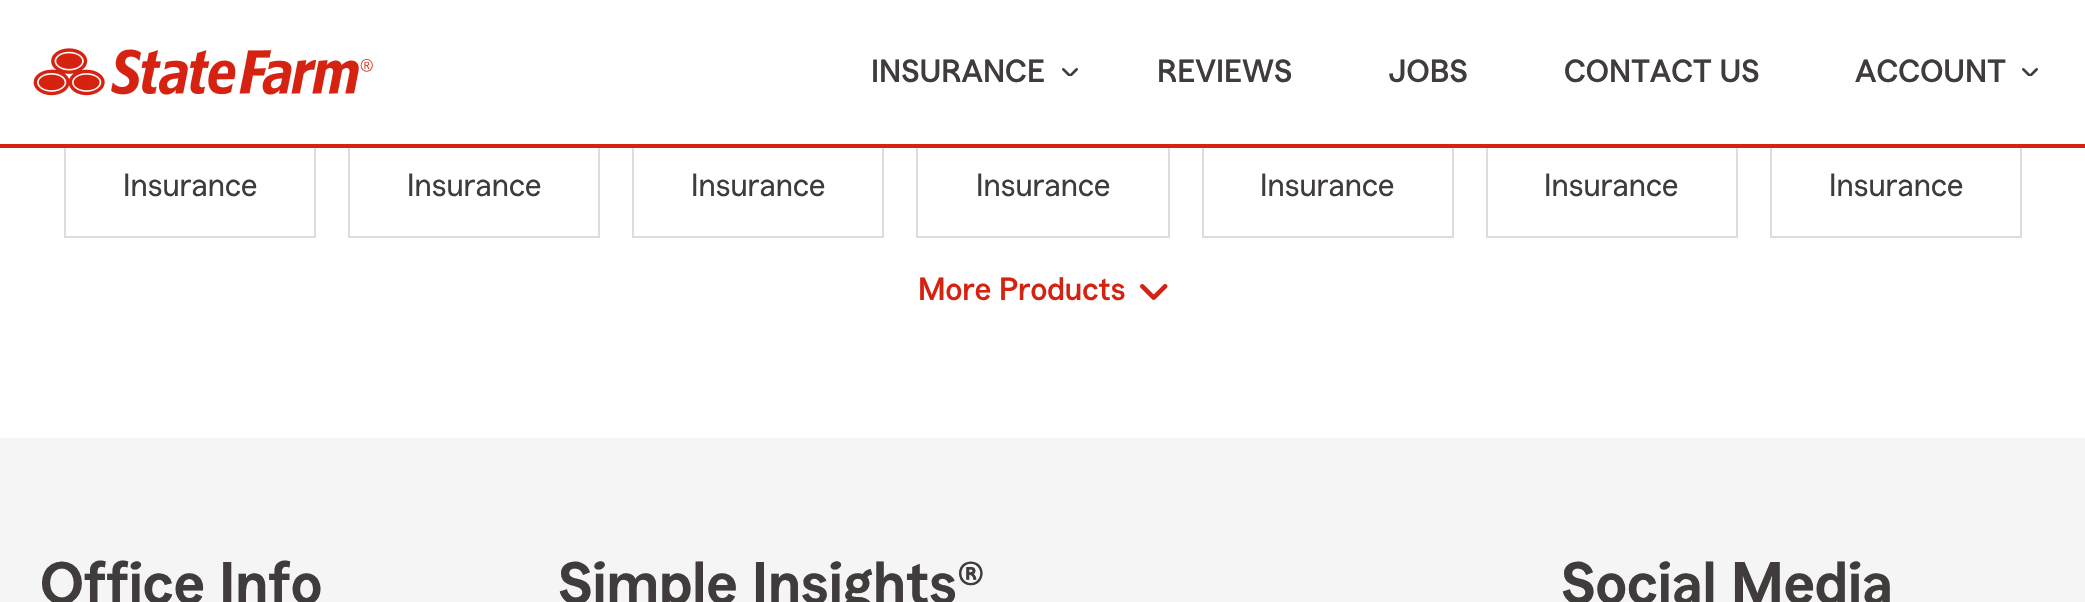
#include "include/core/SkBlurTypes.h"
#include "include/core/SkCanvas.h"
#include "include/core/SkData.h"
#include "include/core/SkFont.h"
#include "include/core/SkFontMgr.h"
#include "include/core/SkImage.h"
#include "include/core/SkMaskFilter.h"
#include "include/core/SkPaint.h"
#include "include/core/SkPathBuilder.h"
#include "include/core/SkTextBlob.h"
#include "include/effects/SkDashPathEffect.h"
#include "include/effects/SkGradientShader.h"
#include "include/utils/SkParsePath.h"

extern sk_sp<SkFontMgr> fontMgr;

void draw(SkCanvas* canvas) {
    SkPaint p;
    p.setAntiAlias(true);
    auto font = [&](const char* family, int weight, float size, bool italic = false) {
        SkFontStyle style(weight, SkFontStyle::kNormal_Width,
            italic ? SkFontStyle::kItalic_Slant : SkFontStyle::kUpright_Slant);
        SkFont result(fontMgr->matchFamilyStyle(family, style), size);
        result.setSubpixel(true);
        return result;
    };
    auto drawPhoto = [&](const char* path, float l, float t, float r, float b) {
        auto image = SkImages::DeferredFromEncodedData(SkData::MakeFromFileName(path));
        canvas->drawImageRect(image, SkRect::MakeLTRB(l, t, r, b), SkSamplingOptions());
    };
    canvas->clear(0xFFFFFFFF);
    p.setStyle(SkPaint::kStroke_Style);
    p.setStrokeWidth(2);
    p.setColor(0xFFDCDCDC);
    canvas->drawRect(SkRect::MakeLTRB(65, -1, 315, 237), p);
    canvas->drawRect(SkRect::MakeLTRB(349, -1, 599, 237), p);
    canvas->drawRect(SkRect::MakeLTRB(633, -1, 883, 237), p);
    canvas->drawRect(SkRect::MakeLTRB(917, -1, 1169, 237), p);
    canvas->drawRect(SkRect::MakeLTRB(1203, -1, 1453, 237), p);
    canvas->drawRect(SkRect::MakeLTRB(1487, -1, 1737, 237), p);
    canvas->drawRect(SkRect::MakeLTRB(1771, -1, 2021, 237), p);
    p.setStyle(SkPaint::kFill_Style);
    p.setColor(0xFFFFFFFF);
    canvas->drawRect(SkRect::MakeLTRB(64, 0, 2022, 144), p);
    p.setColor(0xFFD62311);
    canvas->drawRect(SkRect::MakeLTRB(0, 144, 2085, 148), p);
    drawPhoto("media/1.png", 33, 48, 373, 96);
    auto font1 = font("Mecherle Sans", 500, 32);
    p.setColor(0xFF403C3C);
    canvas->drawString("INSURANCE", 871, 82, font1, p);
    drawPhoto("media/2.png", 1062, 68, 1078, 76);
    {
        const struct { const char* s; float x, y; } items[] = {
            {"REVIEWS", 1157, 82},
            {"JOBS", 1388, 82},
            {"CONTACT US", 1564, 82},
            {"ACCOUNT", 1855, 82},
        };
        for (auto [s, x, y] : items) {
            canvas->drawString(s, x, y, font1, p);
        }
    }
    drawPhoto("media/2.png", 2022, 68, 2038, 76);
    auto font2 = font("Mecherle Sans", 400, 32);
    {
        const struct { const char* s; float x, y; } items[] = {
            {"Insurance", 123, 196},
            {"Insurance", 407, 196},
            {"Insurance", 691, 196},
            {"Insurance", 976, 196},
            {"Insurance", 1260, 196},
            {"Insurance", 1544, 196},
            {"Insurance", 1829, 196},
        };
        for (auto [s, x, y] : items) {
            canvas->drawString(s, x, y, font2, p);
        }
    }
    p.setColor(0xFFD62311);
    canvas->drawString("More Products", 918, 300, font1, p);
    drawPhoto("media/3.png", 1140, 284, 1168, 300);
    p.setColor(0xFFF5F5F5);
    canvas->drawRect(SkRect::MakeLTRB(0, 438, 2085, 602), p);
    auto font3 = font("Mecherle Sans", 600, 60);
    p.setColor(0xFF403C3C);
    {
        const struct { const char* s; float x, y; } items[] = {
            {"Office Info", 40, 604},
            {"Simple Insights®", 558, 604},
            {"Social Media", 1561, 604},
        };
        for (auto [s, x, y] : items) {
            canvas->drawString(s, x, y, font3, p);
        }
    }
}
